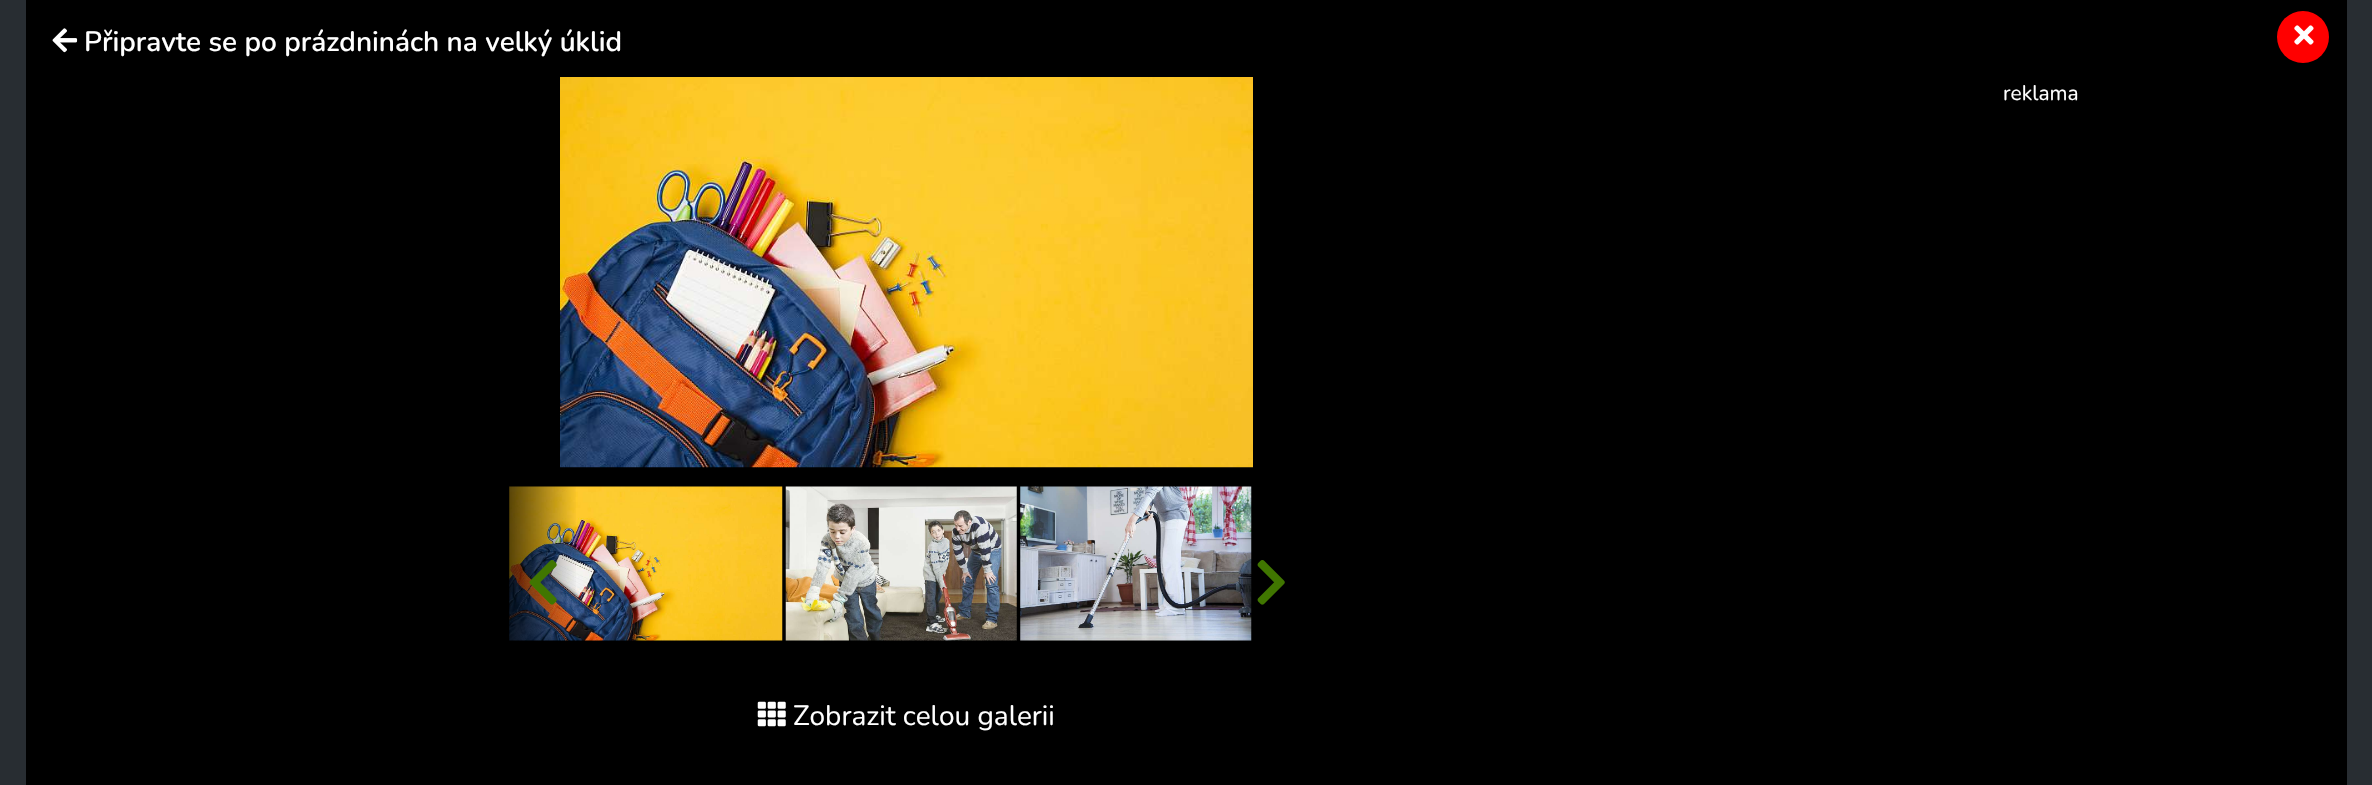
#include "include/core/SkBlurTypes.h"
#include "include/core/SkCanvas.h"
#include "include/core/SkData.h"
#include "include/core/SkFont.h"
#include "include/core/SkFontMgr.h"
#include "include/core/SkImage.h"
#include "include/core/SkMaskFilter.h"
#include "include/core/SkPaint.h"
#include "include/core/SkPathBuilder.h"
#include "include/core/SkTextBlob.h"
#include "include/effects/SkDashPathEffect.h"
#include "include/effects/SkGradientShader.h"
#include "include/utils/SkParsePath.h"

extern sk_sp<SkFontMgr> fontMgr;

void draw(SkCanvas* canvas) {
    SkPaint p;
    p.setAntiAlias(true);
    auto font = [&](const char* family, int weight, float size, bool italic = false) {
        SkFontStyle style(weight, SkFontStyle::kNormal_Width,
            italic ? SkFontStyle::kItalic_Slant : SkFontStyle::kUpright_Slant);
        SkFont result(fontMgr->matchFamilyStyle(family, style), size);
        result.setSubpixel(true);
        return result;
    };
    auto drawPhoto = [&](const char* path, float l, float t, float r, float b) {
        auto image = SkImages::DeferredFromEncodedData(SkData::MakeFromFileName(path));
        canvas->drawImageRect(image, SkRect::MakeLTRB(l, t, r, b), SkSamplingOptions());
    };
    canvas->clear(0xFF282D32);
    p.setColor(0xFF000000);
    canvas->drawRect(SkRect::MakeLTRB(26, 0, 2347, 785), p);
    drawPhoto("media/1.png", 52, 28, 78, 53);
    auto font1 = font("Nunito", 600, 28);
    p.setColor(0xFFFFFFFF);
    canvas->drawString("Připravte se po prázdninách na velký úklid", 84, 51, font1, p);
    p.setColor(0xFFFF0000);
    canvas->drawCircle(2303, 37, 26, p);
    drawPhoto("media/2.png", 2294, 25, 2314, 45);
    auto font2 = font("Nunito", 400, 21);
    p.setColor(0xFFFFFFFF);
    canvas->drawString("reklama", 2003, 100, font2, p);
    drawPhoto("media/3.png", 560, 77, 1253, 468);
    drawPhoto("media/4.png", 509, 486, 783, 641);
    drawPhoto("media/5.png", 785, 486, 1017, 641);
    drawPhoto("media/6.png", 1020, 486, 1252, 641);
    {
        const SkColor colors[] = {0xA6000000, 0x00000000};
        const float stops[] = {0, 1};
        const SkPoint ends[] = {{508, 585}, {578, 585}};
        p.setShader(SkGradientShader::MakeLinear(ends, colors, stops, 2, SkTileMode::kClamp));
        p.setAlpha(255);
    }
    canvas->drawRect(SkRect::MakeLTRB(509, 486, 576, 641), p);
    drawPhoto("media/7.png", 529, 560, 557, 605);
    {
        const SkColor colors[] = {0x00000000, 0xA6000000};
        const float stops[] = {0, 1};
        const SkPoint ends[] = {{1236, 585}, {1306, 585}};
        p.setShader(SkGradientShader::MakeLinear(ends, colors, stops, 2, SkTileMode::kClamp));
        p.setAlpha(255);
    }
    canvas->drawRect(SkRect::MakeLTRB(1238, 486, 1252, 641), p);
    drawPhoto("media/8.png", 1257, 560, 1285, 605);
    drawPhoto("media/9.png", 757, 701, 786, 727);
    auto font3 = font("Nunito", 400, 28);
    p.setShader(nullptr);
    p.setColor(0xFFFFFFFF);
    canvas->drawString("Zobrazit celou galerii", 793, 725, font3, p);
}
